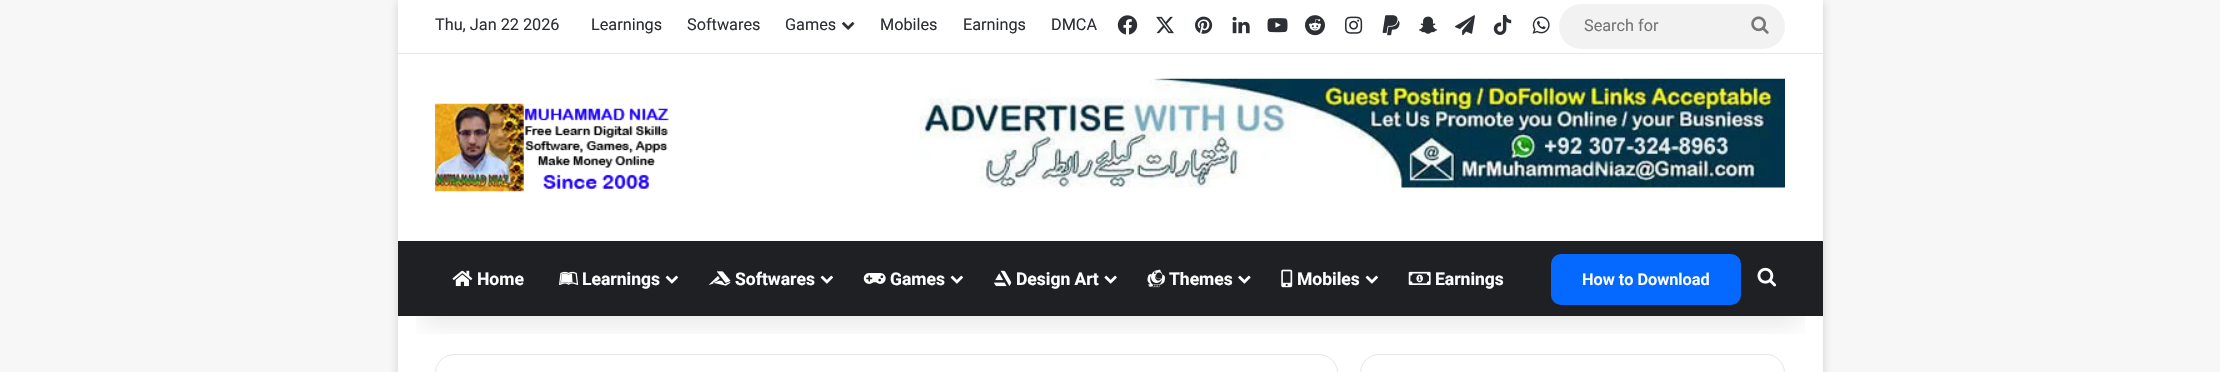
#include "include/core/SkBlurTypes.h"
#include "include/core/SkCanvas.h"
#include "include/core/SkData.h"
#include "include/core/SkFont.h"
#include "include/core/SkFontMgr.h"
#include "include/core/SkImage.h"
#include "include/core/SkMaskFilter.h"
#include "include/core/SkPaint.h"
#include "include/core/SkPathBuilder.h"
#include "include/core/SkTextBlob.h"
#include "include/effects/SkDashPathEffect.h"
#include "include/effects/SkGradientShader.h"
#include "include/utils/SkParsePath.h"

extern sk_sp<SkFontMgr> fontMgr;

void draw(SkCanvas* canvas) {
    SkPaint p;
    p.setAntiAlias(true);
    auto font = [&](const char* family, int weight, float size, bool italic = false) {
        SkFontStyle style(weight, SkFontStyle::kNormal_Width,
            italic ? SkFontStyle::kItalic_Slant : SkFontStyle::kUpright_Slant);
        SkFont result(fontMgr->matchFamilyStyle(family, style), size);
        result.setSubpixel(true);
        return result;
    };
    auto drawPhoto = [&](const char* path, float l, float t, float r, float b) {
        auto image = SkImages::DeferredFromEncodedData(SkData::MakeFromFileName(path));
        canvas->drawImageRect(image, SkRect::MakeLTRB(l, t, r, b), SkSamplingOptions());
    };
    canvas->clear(0xFFF7F7F7);
    p.setColor(0x80ABABAB);
    p.setMaskFilter(SkMaskFilter::MakeBlur(kNormal_SkBlurStyle, 4.5f));
    canvas->drawRect(SkRect::MakeLTRB(398, 1, 1823, 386), p);
    p.setMaskFilter(nullptr);
    p.setColor(0xFFFFFFFF);
    canvas->drawRect(SkRect::MakeLTRB(398, 0, 1823, 372), p);
    p.setStyle(SkPaint::kStroke_Style);
    p.setStrokeWidth(1);
    p.setColor(0xFFE6E6E6);
    canvas->drawRoundRect(SkRect::MakeLTRB(435.5f, 354.5f, 1337.5f, 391.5f), 18.5f, 18.5f, p);
    canvas->drawRoundRect(SkRect::MakeLTRB(1360.5f, 354.5f, 1784.5f, 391.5f), 18.5f, 18.5f, p);
    canvas->save();
    canvas->clipRect(SkRect::MakeLTRB(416, 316, 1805, 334));
    p.setStyle(SkPaint::kFill_Style);
    p.setColor(0x1A000000);
    p.setMaskFilter(SkMaskFilter::MakeBlur(kNormal_SkBlurStyle, 12.5f));
    canvas->drawRect(SkRect::MakeLTRB(423, 56, 1798, 323), p);
    p.setMaskFilter(nullptr);
    canvas->restore();
    p.setColor(0xFFE5E5E5);
    canvas->drawRect(SkRect::MakeLTRB(398, 53, 1823, 54), p);
    auto font1 = font("Roboto", 400, 16.25f);
    p.setColor(0xFF2C2F34);
    {
        const struct { const char* s; float x, y; } items[] = {
            {"Thu, Jan 22 2026", 435, 30},
            {"Learnings", 591, 30},
            {"Softwares", 687, 30},
            {"Games", 785, 30},
        };
        for (auto [s, x, y] : items) {
            canvas->drawString(s, x, y, font1, p);
        }
    }
    drawPhoto("media/1.png", 842, 22, 855, 30);
    {
        const struct { const char* s; float x, y; } items[] = {
            {"Mobiles", 880, 30},
            {"Earnings", 963, 30},
            {"DMCA", 1051, 30},
        };
        for (auto [s, x, y] : items) {
            canvas->drawString(s, x, y, font1, p);
        }
    }
    drawPhoto("media/2.png", 1117, 15, 1138, 35);
    drawPhoto("media/3.png", 1156, 16, 1174, 34);
    drawPhoto("media/4.png", 1195, 16, 1213, 34);
    drawPhoto("media/5.png", 1232, 16, 1250, 34);
    drawPhoto("media/6.png", 1267, 18, 1288, 33);
    drawPhoto("media/7.png", 1305, 15, 1325, 36);
    drawPhoto("media/8.png", 1345, 16, 1363, 34);
    drawPhoto("media/9.png", 1382, 15, 1400, 36);
    drawPhoto("media/10.png", 1419, 16, 1438, 34);
    drawPhoto("media/11.png", 1455, 15, 1475, 36);
    drawPhoto("media/12.png", 1493, 15, 1512, 35);
    drawPhoto("media/13.png", 1532, 16, 1550, 34);
    p.setColor(0xFFF2F2F2);
    canvas->drawRoundRect(SkRect::MakeLTRB(1559, 4, 1785, 49), 22.5f, 22.5f, p);
    p.setColor(0xFF757575);
    canvas->drawString("Search for", 1584, 31, font1, p);
    drawPhoto("media/14.png", 1751, 16, 1769, 34);
    drawPhoto("media/15.png", 435, 103, 669, 192);
    drawPhoto("media/16.png", 919, 78, 1785, 188);
    p.setColor(0xFF1F2024);
    canvas->drawRect(SkRect::MakeLTRB(398, 241, 1823, 316), p);
    drawPhoto("media/17.png", 452, 270, 473, 287);
    auto font2 = font("Roboto", 700, 17.5f);
    p.setColor(0xFFFFFFFF);
    canvas->drawString("Home", 477, 285, font2, p);
    drawPhoto("media/18.png", 559, 271, 579, 285);
    canvas->drawString("Learnings", 582, 285, font2, p);
    drawPhoto("media/19.png", 665, 275, 678, 284);
    drawPhoto("media/20.png", 708, 271, 731, 286);
    canvas->drawString("Softwares", 735, 285, font2, p);
    drawPhoto("media/19.png", 820, 275, 833, 284);
    drawPhoto("media/21.png", 863, 273, 886, 284);
    canvas->drawString("Games", 890, 285, font2, p);
    drawPhoto("media/19.png", 950, 275, 963, 284);
    drawPhoto("media/22.png", 993, 270, 1012, 287);
    canvas->drawString("Design Art", 1016, 285, font2, p);
    drawPhoto("media/23.png", 1104, 275, 1117, 284);
    drawPhoto("media/24.png", 1147, 269, 1165, 288);
    canvas->drawString("Themes", 1169, 285, font2, p);
    drawPhoto("media/25.png", 1238, 275, 1251, 284);
    drawPhoto("media/26.png", 1281, 269, 1293, 288);
    canvas->drawString("Mobiles", 1297, 285, font2, p);
    drawPhoto("media/19.png", 1365, 275, 1378, 284);
    drawPhoto("media/27.png", 1408, 271, 1431, 285);
    canvas->drawString("Earnings", 1435, 285, font2, p);
    p.setColor(0xFF0669FF);
    canvas->drawRoundRect(SkRect::MakeLTRB(1551, 254, 1741, 305), 10, 10, p);
    auto font3 = font("Roboto", 600, 16.25f);
    p.setColor(0xFFFFFFFF);
    canvas->drawString("How to Download", 1582, 285, font3, p);
    drawPhoto("media/28.png", 1757, 267, 1776, 287);
}
